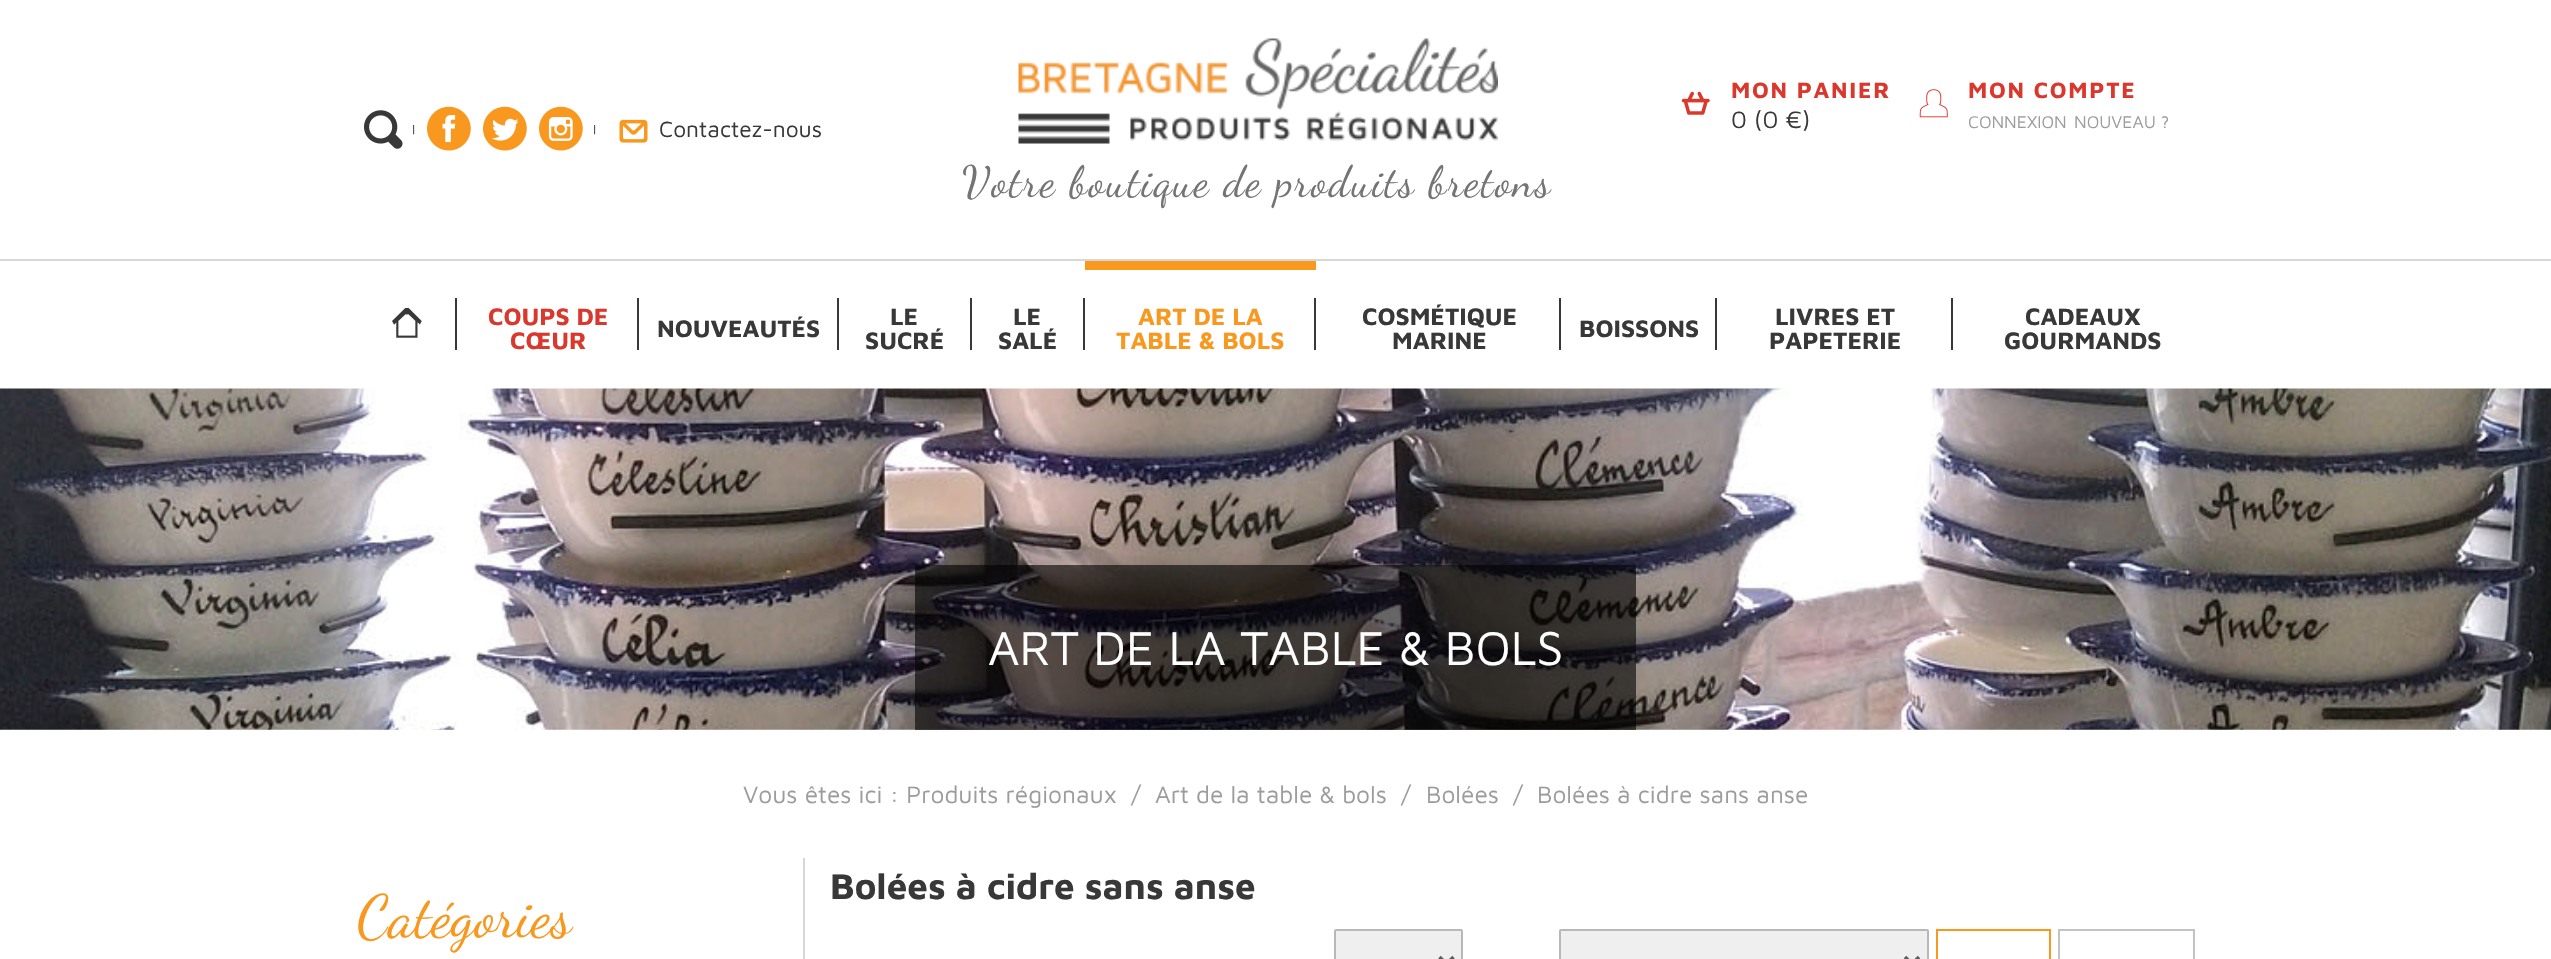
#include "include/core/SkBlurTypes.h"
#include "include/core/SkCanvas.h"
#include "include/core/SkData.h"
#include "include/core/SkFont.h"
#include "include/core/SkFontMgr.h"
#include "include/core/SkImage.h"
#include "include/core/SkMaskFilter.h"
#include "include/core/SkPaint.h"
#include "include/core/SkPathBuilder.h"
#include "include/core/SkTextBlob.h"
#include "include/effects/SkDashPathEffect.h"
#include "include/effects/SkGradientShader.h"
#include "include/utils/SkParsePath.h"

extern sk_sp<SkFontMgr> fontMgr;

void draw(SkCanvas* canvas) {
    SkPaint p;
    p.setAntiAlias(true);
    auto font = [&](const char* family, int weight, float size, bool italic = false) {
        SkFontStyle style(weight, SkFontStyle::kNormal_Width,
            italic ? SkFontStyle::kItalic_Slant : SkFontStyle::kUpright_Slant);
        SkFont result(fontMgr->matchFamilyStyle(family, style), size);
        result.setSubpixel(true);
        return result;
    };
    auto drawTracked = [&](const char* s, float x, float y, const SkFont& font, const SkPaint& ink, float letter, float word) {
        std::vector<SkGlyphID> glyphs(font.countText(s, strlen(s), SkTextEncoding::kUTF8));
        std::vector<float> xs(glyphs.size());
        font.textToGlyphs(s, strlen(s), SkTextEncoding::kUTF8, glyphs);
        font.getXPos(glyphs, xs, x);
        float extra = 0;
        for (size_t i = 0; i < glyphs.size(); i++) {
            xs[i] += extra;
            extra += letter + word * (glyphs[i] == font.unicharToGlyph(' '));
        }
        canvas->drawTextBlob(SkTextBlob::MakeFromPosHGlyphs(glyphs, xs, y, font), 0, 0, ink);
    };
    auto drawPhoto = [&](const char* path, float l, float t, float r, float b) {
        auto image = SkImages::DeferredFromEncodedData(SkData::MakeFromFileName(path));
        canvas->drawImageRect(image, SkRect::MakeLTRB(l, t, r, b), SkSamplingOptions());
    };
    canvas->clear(0xFFFFFFFF);
    drawPhoto("media/1.png", 364, 110, 403, 149);
    auto font1 = font("Maven Pro", 400, 12);
    p.setColor(0xFF383838);
    canvas->drawString("|", 411, 133, font1, p);
    drawPhoto("media/2.png", 427, 106, 471, 151);
    drawPhoto("media/3.png", 483, 106, 527, 151);
    drawPhoto("media/4.png", 539, 106, 583, 151);
    canvas->drawString("|", 592, 133, font1, p);
    drawPhoto("media/5.png", 619, 119, 648, 143);
    auto font2 = font("Maven Pro", 400, 22.75f);
    canvas->drawString("Contactez-nous", 659, 137, font2, p);
    drawPhoto("media/6.png", 1681, 91, 1710, 115);
    auto font3 = font("Maven Pro", 700, 22.75f);
    p.setColor(0xFFDB382D);
    drawTracked("MON PANIER", 1731, 98, font3, p, 1.75f, 0);
    auto font4 = font("Maven Pro", 400, 24.5f);
    p.setColor(0xFF383838);
    canvas->drawString("0 (0 €)", 1731, 128, font4, p);
    drawPhoto("media/7.png", 1919, 89, 1948, 118);
    p.setColor(0xFFDB382D);
    drawTracked("MON COMPTE", 1968, 98, font3, p, 1.75f, 0);
    auto font5 = font("Maven Pro", 400, 17.5f);
    p.setColor(0xFF9C9C9C);
    canvas->drawString("CONNEXION", 1968, 128, font5, p);
    canvas->drawString("NOUVEAU ?", 2074, 128, font5, p);
    drawPhoto("media/8.png", 1018, 38, 1498, 144);
    auto font6 = font("Dancing Script", 400, 43.75f);
    p.setColor(0xFF747474);
    drawTracked("Votre boutique de produits bretons", 962, 196, font6, p, 1.75f, 0);
    p.setColor(0xFFD7D7D7);
    canvas->drawRect(SkRect::MakeLTRB(0, 259, 2551, 261), p);
    drawPhoto("media/9.png", 392, 308, 422, 338);
    p.setColor(0xFF383838);
    canvas->drawRect(SkRect::MakeLTRB(455, 298, 457, 350), p);
    auto font7 = font("Maven Pro", 700, 24.5f);
    p.setColor(0xFFDB382D);
    canvas->drawString("COUPS DE", 488, 325, font7, p);
    canvas->drawString("CŒUR", 510, 349, font7, p);
    p.setColor(0xFF383838);
    canvas->drawRect(SkRect::MakeLTRB(637, 298, 639, 350), p);
    canvas->drawString("NOUVEAUTÉS", 657, 337, font7, p);
    canvas->drawRect(SkRect::MakeLTRB(837, 298, 839, 350), p);
    canvas->drawString("LE", 890, 325, font7, p);
    canvas->drawString("SUCRÉ", 865, 349, font7, p);
    canvas->drawRect(SkRect::MakeLTRB(970, 298, 972, 350), p);
    canvas->drawString("LE", 1013, 325, font7, p);
    canvas->drawString("SALÉ", 998, 349, font7, p);
    canvas->drawRect(SkRect::MakeLTRB(1083, 298, 1085, 350), p);
    p.setColor(0xFFF8981E);
    canvas->drawRect(SkRect::MakeLTRB(1085, 261, 1316, 270), p);
    canvas->drawString("ART DE LA", 1138, 325, font7, p);
    canvas->drawString("TABLE & BOLS", 1116, 349, font7, p);
    p.setColor(0xFF383838);
    canvas->drawRect(SkRect::MakeLTRB(1314, 298, 1316, 350), p);
    canvas->drawString("COSMÉTIQUE", 1362, 325, font7, p);
    canvas->drawString("MARINE", 1392, 349, font7, p);
    canvas->drawRect(SkRect::MakeLTRB(1559, 298, 1561, 350), p);
    canvas->drawString("BOISSONS", 1579, 337, font7, p);
    canvas->drawRect(SkRect::MakeLTRB(1715, 298, 1717, 350), p);
    canvas->drawString("LIVRES ET", 1775, 325, font7, p);
    canvas->drawString("PAPETERIE", 1769, 349, font7, p);
    canvas->drawRect(SkRect::MakeLTRB(1951, 298, 1953, 350), p);
    canvas->drawString("CADEAUX", 2025, 325, font7, p);
    canvas->drawString("GOURMANDS", 2004, 349, font7, p);
    drawPhoto("media/10.png", 0, 388, 2551, 730);
    p.setColor(0x99000000);
    canvas->drawRect(SkRect::MakeLTRB(915, 565, 1636, 730), p);
    auto font8 = font("Maven Pro", 400, 49);
    p.setColor(0xFFFFFFFF);
    canvas->drawString("ART DE LA TABLE & BOLS", 988, 665, font8, p);
    p.setColor(0xFF9C9C9C);
    {
        const struct { const char* s; float x, y; } items[] = {
            {"Vous êtes ici : Produits régionaux", 743, 803},
            {"/", 1131, 803},
            {"Art de la table & bols", 1155, 803},
            {"/", 1401, 803},
            {"Bolées", 1426, 803},
            {"/", 1513, 803},
            {"Bolées à cidre sans anse", 1537, 803},
        };
        for (auto [s, x, y] : items) {
            canvas->drawString(s, x, y, font4, p);
        }
    }
    p.setColor(0xFFD7D7D7);
    canvas->drawRect(SkRect::MakeLTRB(803, 858, 805, 959), p);
    auto font9 = font("Maven Pro", 700, 36.75f);
    p.setColor(0xFF383838);
    canvas->drawString("Bolées à cidre sans anse", 830, 899, font9, p);
    p.setColor(0xFFEFEFEF);
    canvas->drawRoundRect(SkRect::MakeLTRB(1335, 930, 1462, 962), 1, 1, p);
    p.setStyle(SkPaint::kStroke_Style);
    p.setStrokeWidth(2);
    p.setColor(0xFFB8B8B8);
    canvas->drawRoundRect(SkRect::MakeLTRB(1335, 930, 1462, 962), 1, 1, p);
    p.setStrokeWidth(3.5f);
    p.setColor(0xFF5D5D5D);
    canvas->drawPath(SkPathBuilder().moveTo(1439.5f, 957).lineTo(1446.5f, 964).lineTo(1453.5f, 957).detach(), p);
    p.setStyle(SkPaint::kFill_Style);
    p.setColor(0xFFEFEFEF);
    canvas->drawRoundRect(SkRect::MakeLTRB(1560, 930, 1928, 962), 1, 1, p);
    p.setStyle(SkPaint::kStroke_Style);
    p.setStrokeWidth(2);
    p.setColor(0xFFB8B8B8);
    canvas->drawRoundRect(SkRect::MakeLTRB(1560, 930, 1928, 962), 1, 1, p);
    p.setStrokeWidth(3.5f);
    p.setColor(0xFF5D5D5D);
    canvas->drawPath(SkPathBuilder().moveTo(1905, 957).lineTo(1912, 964).lineTo(1919, 957).detach(), p);
    p.setStrokeWidth(2);
    p.setColor(0xFFF8981E);
    canvas->drawRect(SkRect::MakeLTRB(1937, 930, 2050, 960), p);
    p.setColor(0xFFC3C3C3);
    canvas->drawRect(SkRect::MakeLTRB(2059, 930, 2194, 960), p);
    auto font10 = font("Dancing Script", 400, 59.5f);
    p.setStyle(SkPaint::kFill_Style);
    p.setColor(0xFFF8981E);
    canvas->drawString("Catégories", 357, 936, font10, p);
}
